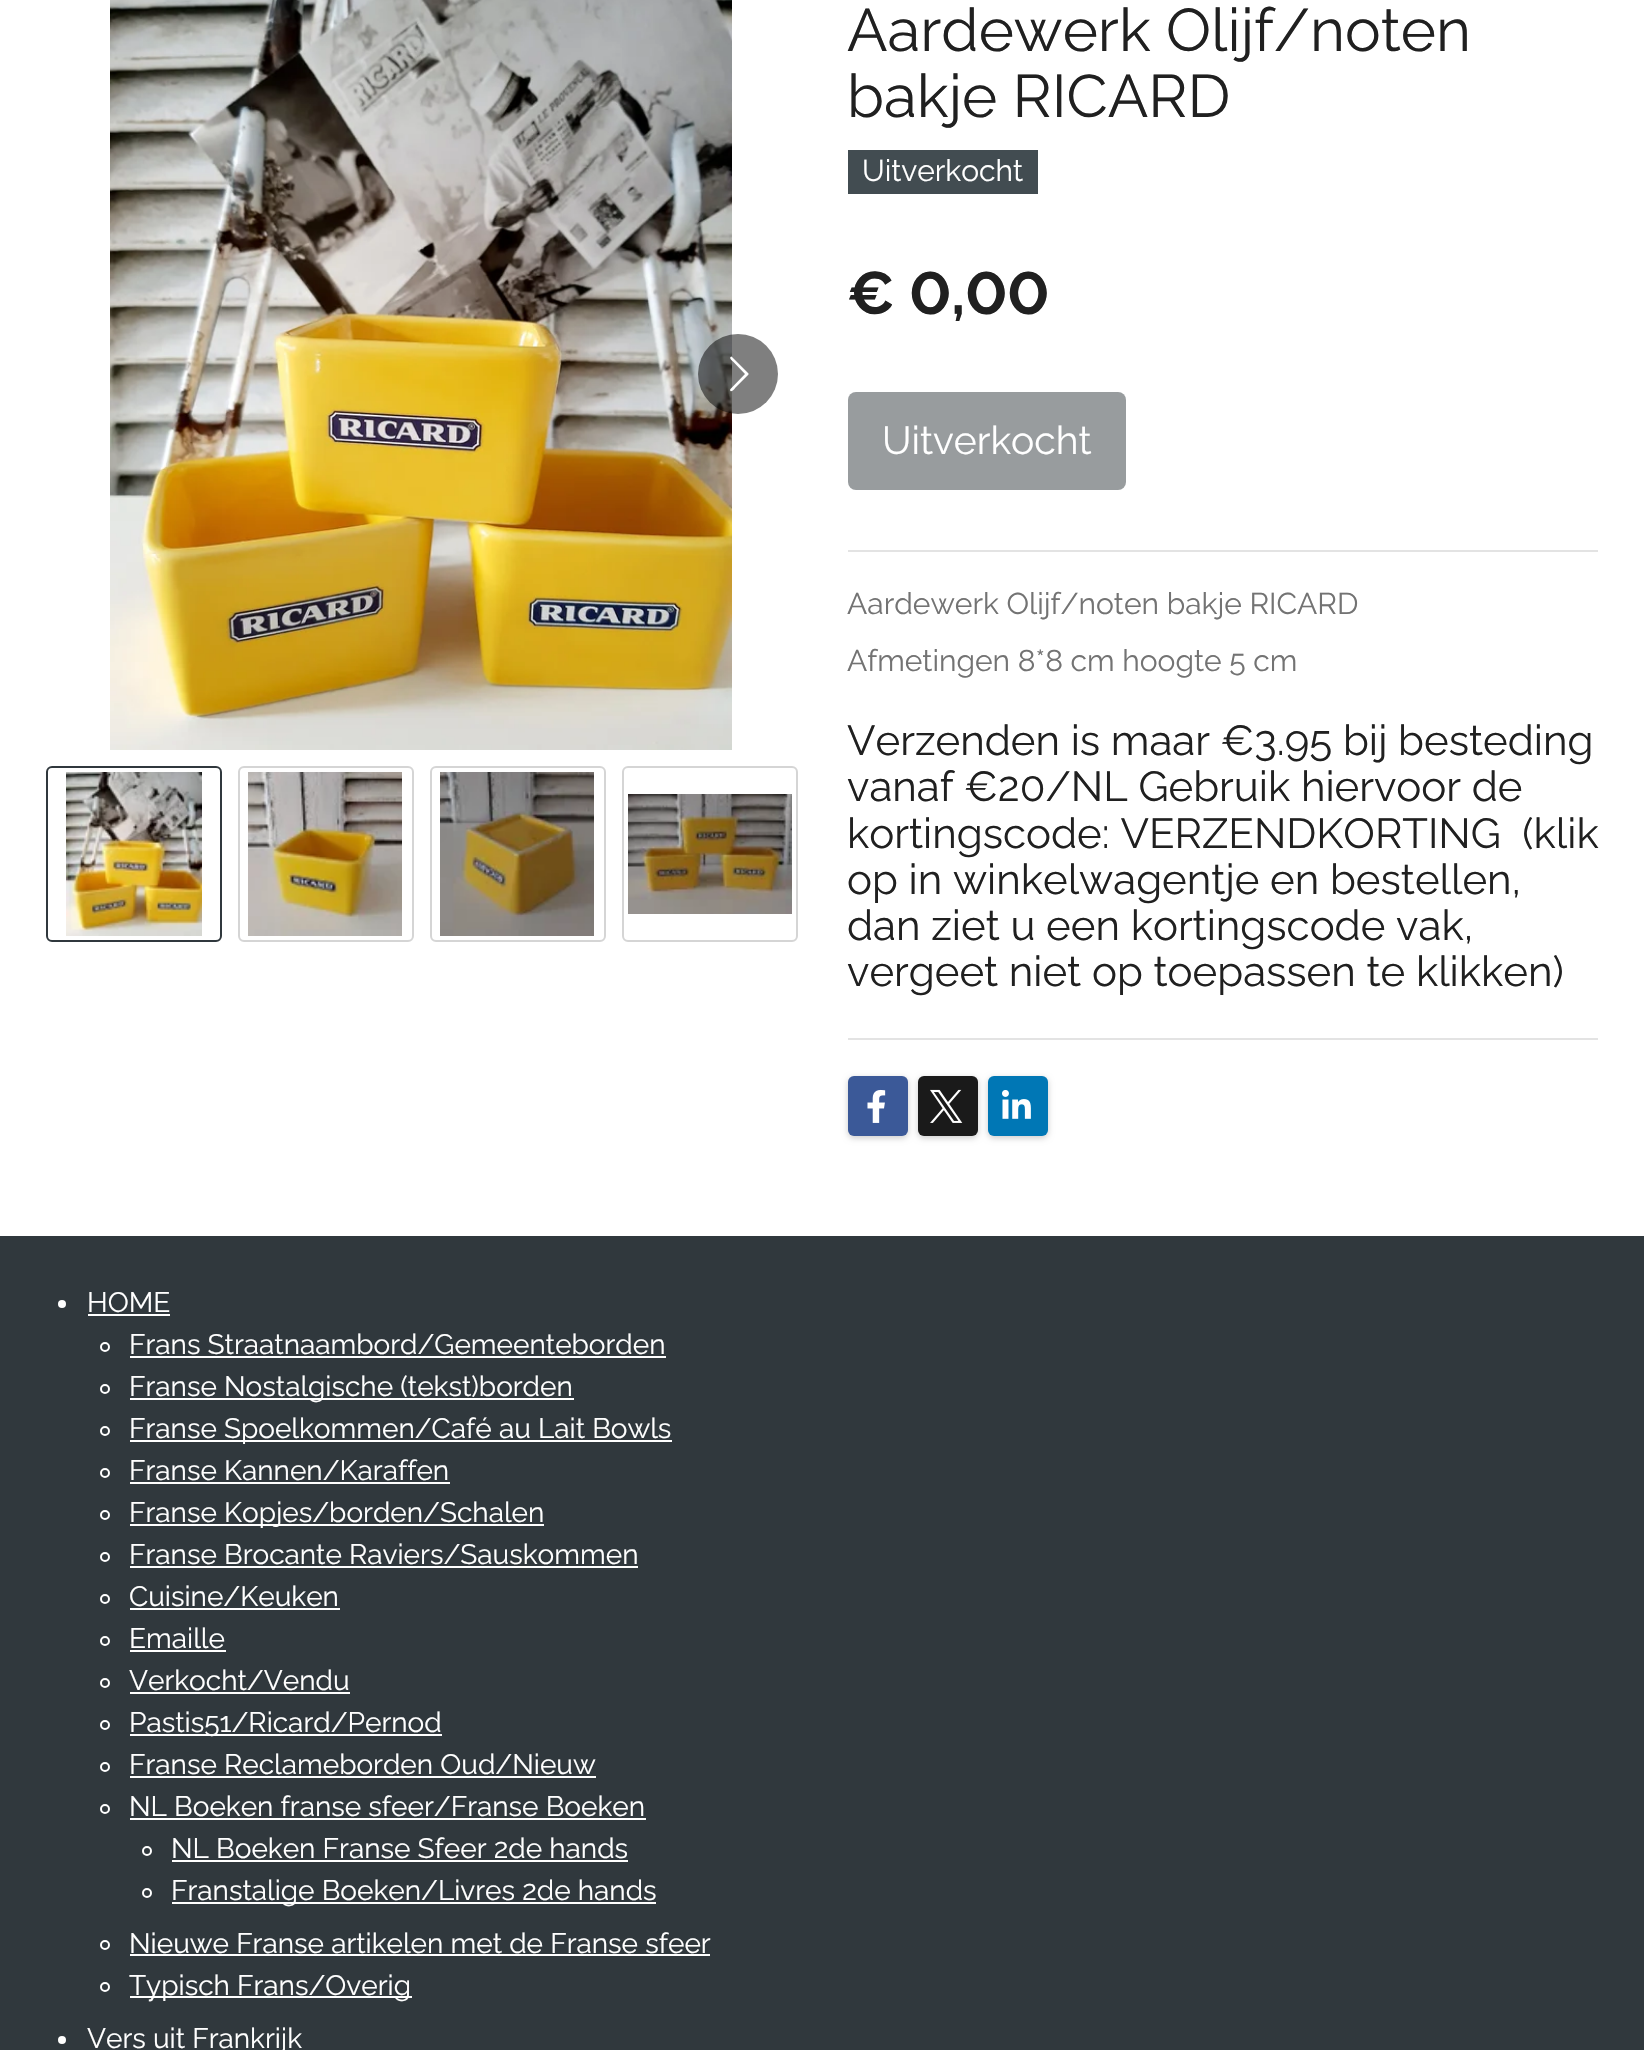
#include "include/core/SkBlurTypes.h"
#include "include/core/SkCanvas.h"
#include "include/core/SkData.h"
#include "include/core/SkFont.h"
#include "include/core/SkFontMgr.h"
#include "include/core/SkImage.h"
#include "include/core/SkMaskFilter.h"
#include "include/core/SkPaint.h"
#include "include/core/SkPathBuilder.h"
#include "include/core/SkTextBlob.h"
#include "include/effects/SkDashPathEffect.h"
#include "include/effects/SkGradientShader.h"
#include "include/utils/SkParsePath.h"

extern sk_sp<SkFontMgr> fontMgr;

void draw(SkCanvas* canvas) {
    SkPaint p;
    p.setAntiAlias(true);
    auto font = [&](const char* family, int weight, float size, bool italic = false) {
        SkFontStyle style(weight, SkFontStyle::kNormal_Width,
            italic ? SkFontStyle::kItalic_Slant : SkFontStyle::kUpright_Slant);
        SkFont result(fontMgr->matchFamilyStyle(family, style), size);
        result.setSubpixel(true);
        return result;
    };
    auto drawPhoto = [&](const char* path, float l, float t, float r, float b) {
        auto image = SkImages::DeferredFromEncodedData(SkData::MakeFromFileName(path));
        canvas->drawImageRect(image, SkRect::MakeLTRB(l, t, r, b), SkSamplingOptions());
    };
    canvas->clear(0xFFFFFFFF);
    drawPhoto("media/1.png", 110, 0, 732, 750);
    p.setColor(0x80000000);
    canvas->drawCircle(738, 374, 40, p);
    p.setColor(0xFFFFFFFF);
    canvas->drawPath(SkPathBuilder().moveTo(730.5f, 389).lineTo(745, 374).lineTo(733, 361.5f).cubicTo(732.5f, 361, 728, 357.5f, 731.5f, 356.5f).lineTo(732, 357).lineTo(748.5f, 373.5f).lineTo(748.5f, 374.5f).lineTo(735, 388).cubicTo(735, 388.5f, 731, 393.5f, 730, 390).close().detach(), p);
    p.setStyle(SkPaint::kStroke_Style);
    p.setStrokeWidth(2);
    p.setColor(0xFF30383D);
    canvas->drawRoundRect(SkRect::MakeLTRB(47, 767, 221, 941), 5, 5, p);
    drawPhoto("media/2.png", 66, 772, 202, 936);
    p.setColor(0xFFD5D5D5);
    canvas->drawRoundRect(SkRect::MakeLTRB(239, 767, 413, 941), 5, 5, p);
    drawPhoto("media/3.png", 248, 772, 402, 936);
    canvas->drawRoundRect(SkRect::MakeLTRB(431, 767, 605, 941), 5, 5, p);
    drawPhoto("media/4.png", 440, 772, 594, 936);
    canvas->drawRoundRect(SkRect::MakeLTRB(623, 767, 797, 941), 5, 5, p);
    drawPhoto("media/5.png", 628, 794, 792, 914);
    auto font1 = font("Raleway", 400, 60);
    p.setStyle(SkPaint::kFill_Style);
    p.setColor(0xFF202020);
    canvas->drawString("Aardewerk Olijf/noten", 847, 51, font1, p);
    canvas->drawString("bakje RICARD", 847, 117, font1, p);
    p.setColor(0xFF424C51);
    canvas->drawRect(SkRect::MakeLTRB(848, 150, 1038, 194), p);
    auto font2 = font("Raleway", 400, 30);
    p.setColor(0xFFFFFFFF);
    canvas->drawString("Uitverkocht", 862, 181, font2, p);
    auto font3 = font("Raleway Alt", 700, 60);
    p.setColor(0xFF202020);
    canvas->drawString("€ 0,00", 847, 314, font3, p);
    p.setColor(0xFF989C9E);
    canvas->drawRoundRect(SkRect::MakeLTRB(848, 392, 1126, 490), 8, 8, p);
    auto font4 = font("Raleway", 400, 39);
    p.setColor(0xFFFFFFFF);
    canvas->drawString("Uitverkocht", 882, 454, font4, p);
    p.setColor(0xFFE3E3E3);
    canvas->drawRect(SkRect::MakeLTRB(848, 550, 1598, 552), p);
    p.setColor(0xFF737373);
    canvas->drawString("Aardewerk Olijf/noten bakje RICARD", 847, 614, font2, p);
    canvas->drawString("Afmetingen 8*8 cm hoogte 5 cm", 847, 671, font2, p);
    auto font5 = font("Raleway", 400, 42);
    p.setColor(0xFF202020);
    {
        const struct { const char* s; float x, y; } items[] = {
            {"Verzenden is maar €3.95 bij besteding", 847, 755},
            {"vanaf €20/NL Gebruik hiervoor de", 847, 801},
            {"kortingscode: VERZENDKORTING  (klik", 847, 848},
            {"op in winkelwagentje en bestellen,", 847, 894},
            {"dan ziet u een kortingscode vak,", 847, 940},
            {"vergeet niet op toepassen te klikken)", 847, 986},
        };
        for (auto [s, x, y] : items) {
            canvas->drawString(s, x, y, font5, p);
        }
    }
    p.setColor(0xFFE3E3E3);
    canvas->drawRect(SkRect::MakeLTRB(848, 1038, 1598, 1040), p);
    p.setColor(0x33000000);
    p.setMaskFilter(SkMaskFilter::MakeBlur(kNormal_SkBlurStyle, 3));
    canvas->drawRoundRect(SkRect::MakeLTRB(848, 1078, 908, 1138), 6, 6, p);
    p.setMaskFilter(nullptr);
    p.setColor(0xFF3B5998);
    canvas->drawRoundRect(SkRect::MakeLTRB(848, 1076, 908, 1136), 6, 6, p);
    drawPhoto("media/6.png", 867, 1089, 886, 1123);
    p.setColor(0x33000000);
    p.setMaskFilter(SkMaskFilter::MakeBlur(kNormal_SkBlurStyle, 3));
    canvas->drawRoundRect(SkRect::MakeLTRB(918, 1078, 978, 1138), 6, 6, p);
    p.setMaskFilter(nullptr);
    p.setColor(0xFF1A1A1A);
    canvas->drawRoundRect(SkRect::MakeLTRB(918, 1076, 978, 1136), 6, 6, p);
    drawPhoto("media/7.png", 930, 1089, 963, 1123);
    p.setColor(0x33000000);
    p.setMaskFilter(SkMaskFilter::MakeBlur(kNormal_SkBlurStyle, 3));
    canvas->drawRoundRect(SkRect::MakeLTRB(988, 1078, 1048, 1138), 6, 6, p);
    p.setMaskFilter(nullptr);
    p.setColor(0xFF0077B5);
    canvas->drawRoundRect(SkRect::MakeLTRB(988, 1076, 1048, 1136), 6, 6, p);
    drawPhoto("media/8.png", 1002, 1090, 1031, 1119);
    p.setColor(0xFF30383D);
    canvas->drawRect(SkRect::MakeLTRB(0, 1236, 1644, 2050), p);
    p.setColor(0xFFFFFFFF);
    canvas->drawCircle(62, 1304, 4, p);
    auto font6 = font("Raleway", 400, 28);
    canvas->drawString("HOME", 87, 1312, font6, p);
    canvas->drawRect(SkRect::MakeLTRB(88, 1314, 170, 1316), p);
    p.setStyle(SkPaint::kStroke_Style);
    canvas->drawCircle(105, 1347, 4, p);
    p.setStyle(SkPaint::kFill_Style);
    canvas->drawString("Frans Straatnaambord/Gemeenteborden", 129, 1354, font6, p);
    canvas->drawRect(SkRect::MakeLTRB(130, 1356, 666, 1358), p);
    p.setStyle(SkPaint::kStroke_Style);
    canvas->drawCircle(105, 1389, 4, p);
    p.setStyle(SkPaint::kFill_Style);
    canvas->drawRect(SkRect::MakeLTRB(130, 1398, 574, 1400), p);
    canvas->drawString("Franse Nostalgische (tekst)borden", 129, 1396, font6, p);
    p.setStyle(SkPaint::kStroke_Style);
    canvas->drawCircle(105, 1431, 4, p);
    p.setStyle(SkPaint::kFill_Style);
    canvas->drawRect(SkRect::MakeLTRB(130, 1440, 672, 1442), p);
    canvas->drawString("Franse Spoelkommen/Café au Lait Bowls", 129, 1438, font6, p);
    p.setStyle(SkPaint::kStroke_Style);
    canvas->drawCircle(105, 1473, 4, p);
    p.setStyle(SkPaint::kFill_Style);
    canvas->drawString("Franse Kannen/Karaffen", 129, 1480, font6, p);
    canvas->drawRect(SkRect::MakeLTRB(130, 1482, 450, 1484), p);
    p.setStyle(SkPaint::kStroke_Style);
    canvas->drawCircle(105, 1515, 4, p);
    p.setStyle(SkPaint::kFill_Style);
    canvas->drawRect(SkRect::MakeLTRB(130, 1524, 544, 1526), p);
    canvas->drawString("Franse Kopjes/borden/Schalen", 129, 1522, font6, p);
    p.setStyle(SkPaint::kStroke_Style);
    canvas->drawCircle(105, 1557, 4, p);
    p.setStyle(SkPaint::kFill_Style);
    canvas->drawString("Franse Brocante Raviers/Sauskommen", 129, 1564, font6, p);
    canvas->drawRect(SkRect::MakeLTRB(130, 1566, 638, 1568), p);
    p.setStyle(SkPaint::kStroke_Style);
    canvas->drawCircle(105, 1599, 4, p);
    p.setStyle(SkPaint::kFill_Style);
    canvas->drawString("Cuisine/Keuken", 129, 1606, font6, p);
    canvas->drawRect(SkRect::MakeLTRB(130, 1608, 340, 1610), p);
    p.setStyle(SkPaint::kStroke_Style);
    canvas->drawCircle(105, 1641, 4, p);
    p.setStyle(SkPaint::kFill_Style);
    canvas->drawString("Emaille", 129, 1648, font6, p);
    canvas->drawRect(SkRect::MakeLTRB(130, 1650, 226, 1652), p);
    p.setStyle(SkPaint::kStroke_Style);
    canvas->drawCircle(105, 1683, 4, p);
    p.setStyle(SkPaint::kFill_Style);
    canvas->drawString("Verkocht/Vendu", 129, 1690, font6, p);
    canvas->drawRect(SkRect::MakeLTRB(130, 1692, 350, 1694), p);
    p.setStyle(SkPaint::kStroke_Style);
    canvas->drawCircle(105, 1725, 4, p);
    p.setStyle(SkPaint::kFill_Style);
    canvas->drawRect(SkRect::MakeLTRB(130, 1734, 442, 1736), p);
    canvas->drawString("Pastis51/Ricard/Pernod", 129, 1732, font6, p);
    p.setStyle(SkPaint::kStroke_Style);
    canvas->drawCircle(105, 1767, 4, p);
    p.setStyle(SkPaint::kFill_Style);
    canvas->drawString("Franse Reclameborden Oud/Nieuw", 129, 1774, font6, p);
    canvas->drawRect(SkRect::MakeLTRB(130, 1776, 596, 1778), p);
    p.setStyle(SkPaint::kStroke_Style);
    canvas->drawCircle(105, 1809, 4, p);
    p.setStyle(SkPaint::kFill_Style);
    canvas->drawString("NL Boeken franse sfeer/Franse Boeken", 129, 1816, font6, p);
    canvas->drawRect(SkRect::MakeLTRB(130, 1818, 646, 1820), p);
    p.setStyle(SkPaint::kStroke_Style);
    canvas->drawCircle(147, 1851, 4, p);
    p.setStyle(SkPaint::kFill_Style);
    canvas->drawString("NL Boeken Franse Sfeer 2de hands", 171, 1858, font6, p);
    canvas->drawRect(SkRect::MakeLTRB(172, 1860, 628, 1862), p);
    p.setStyle(SkPaint::kStroke_Style);
    canvas->drawCircle(147, 1893, 4, p);
    p.setStyle(SkPaint::kFill_Style);
    canvas->drawRect(SkRect::MakeLTRB(172, 1902, 656, 1904), p);
    canvas->drawString("Franstalige Boeken/Livres 2de hands", 171, 1900, font6, p);
    p.setStyle(SkPaint::kStroke_Style);
    canvas->drawCircle(105, 1945, 4, p);
    p.setStyle(SkPaint::kFill_Style);
    canvas->drawString("Nieuwe Franse artikelen met de Franse sfeer", 129, 1953, font6, p);
    canvas->drawRect(SkRect::MakeLTRB(130, 1954, 710, 1956), p);
    p.setStyle(SkPaint::kStroke_Style);
    canvas->drawCircle(105, 1987, 4, p);
    p.setStyle(SkPaint::kFill_Style);
    canvas->drawRect(SkRect::MakeLTRB(130, 1996, 412, 1998), p);
    canvas->drawString("Typisch Frans/Overig", 129, 1995, font6, p);
    canvas->drawCircle(62, 2040, 4, p);
    canvas->drawString("Vers uit Frankrijk", 87, 2048, font6, p);
}
